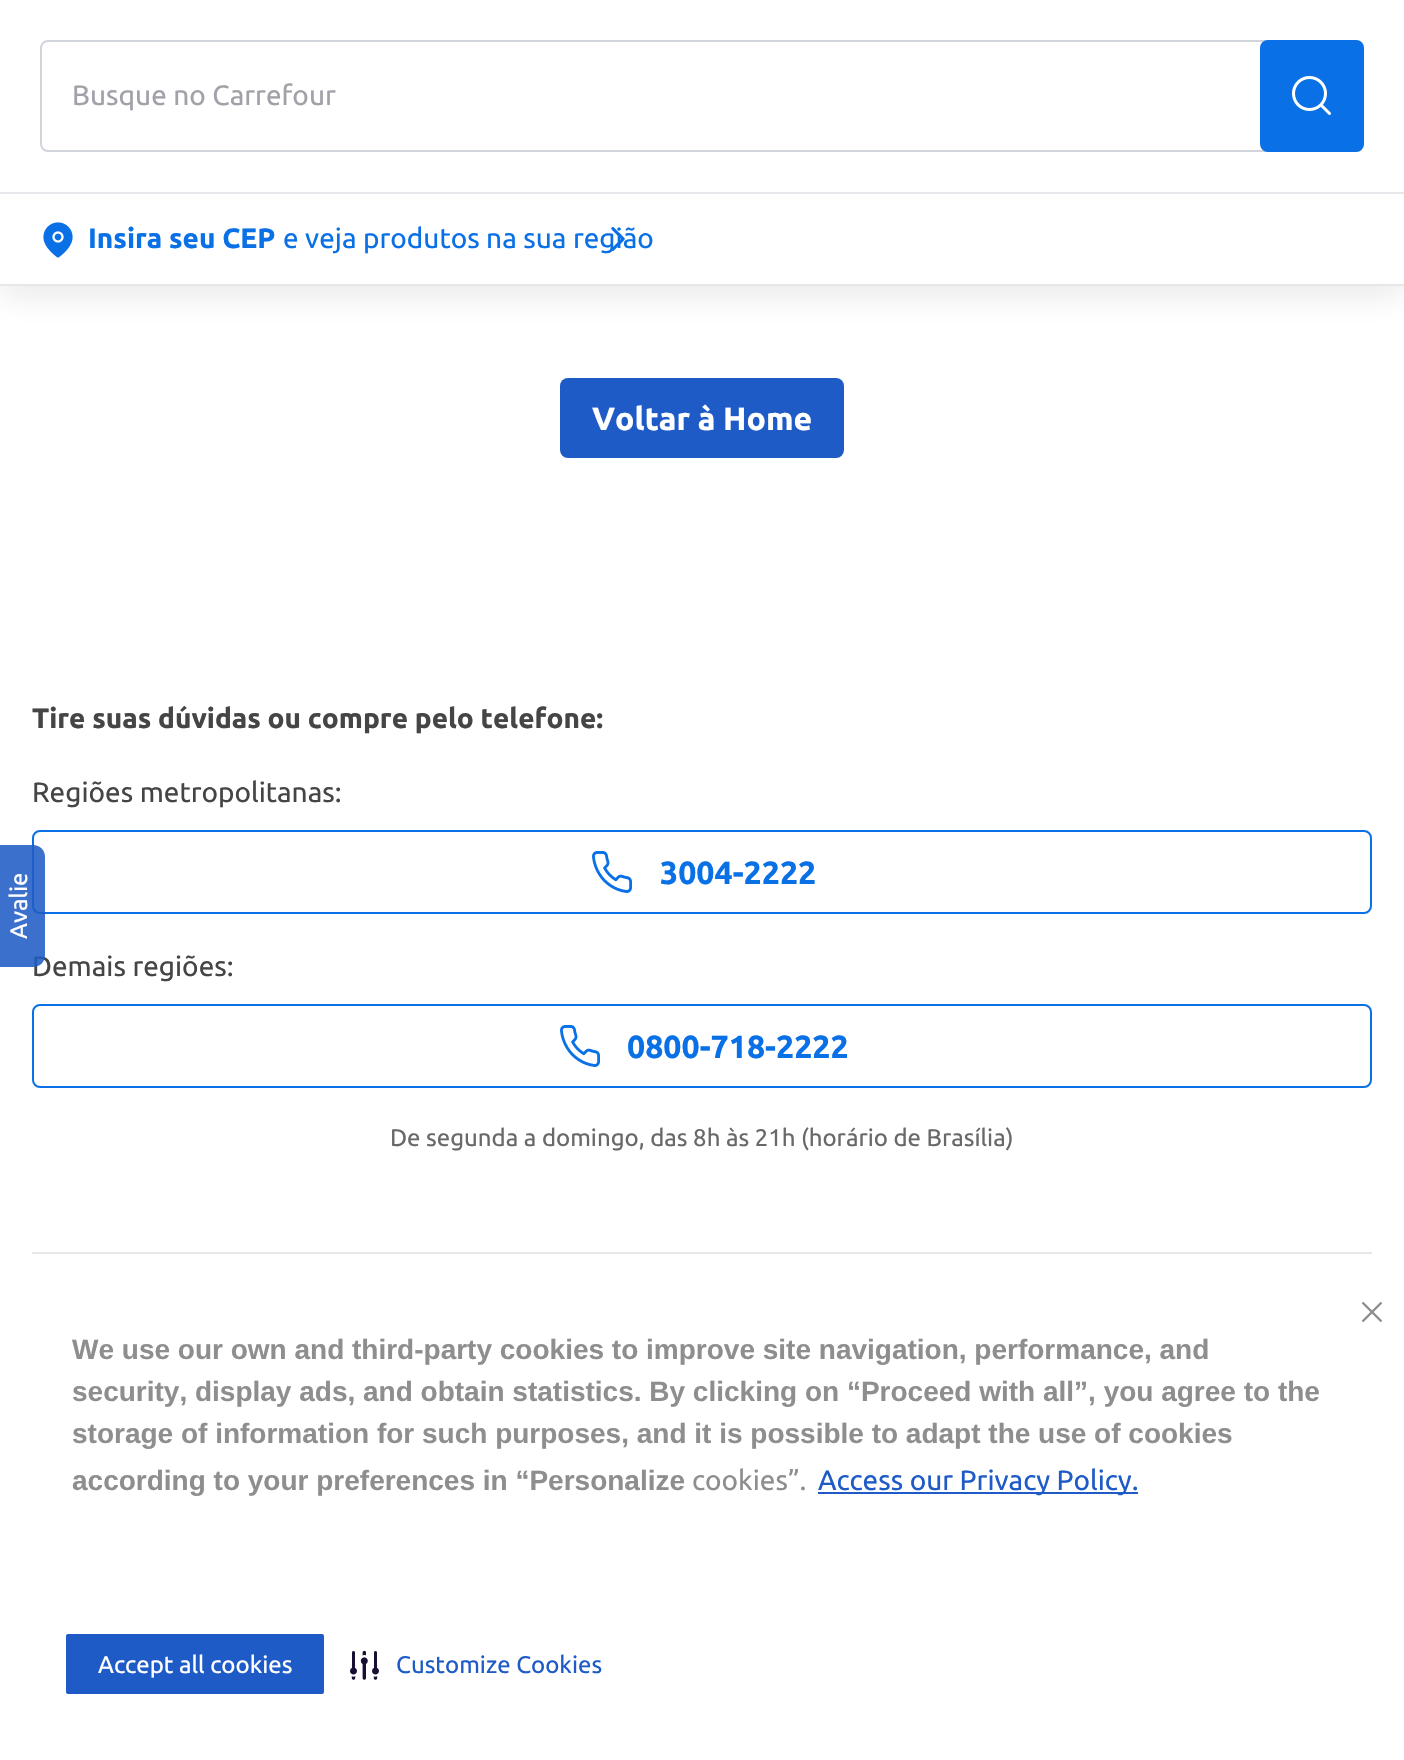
#include "include/core/SkBlurTypes.h"
#include "include/core/SkCanvas.h"
#include "include/core/SkData.h"
#include "include/core/SkFont.h"
#include "include/core/SkFontMgr.h"
#include "include/core/SkImage.h"
#include "include/core/SkMaskFilter.h"
#include "include/core/SkPaint.h"
#include "include/core/SkPathBuilder.h"
#include "include/core/SkTextBlob.h"
#include "include/effects/SkDashPathEffect.h"
#include "include/effects/SkGradientShader.h"
#include "include/utils/SkParsePath.h"

extern sk_sp<SkFontMgr> fontMgr;

void draw(SkCanvas* canvas) {
    SkPaint p;
    p.setAntiAlias(true);
    auto font = [&](const char* family, int weight, float size, bool italic = false) {
        SkFontStyle style(weight, SkFontStyle::kNormal_Width,
            italic ? SkFontStyle::kItalic_Slant : SkFontStyle::kUpright_Slant);
        SkFont result(fontMgr->matchFamilyStyle(family, style), size);
        result.setSubpixel(true);
        return result;
    };
    auto drawPhoto = [&](const char* path, float l, float t, float r, float b) {
        auto image = SkImages::DeferredFromEncodedData(SkData::MakeFromFileName(path));
        canvas->drawImageRect(image, SkRect::MakeLTRB(l, t, r, b), SkSamplingOptions());
    };
    canvas->clear(0xFFFFFFFF);
    p.setColor(0x1A121212);
    p.setMaskFilter(SkMaskFilter::MakeBlur(kNormal_SkBlurStyle, 16));
    canvas->drawRect(SkRect::MakeLTRB(0, 8, 1404, 294), p);
    p.setMaskFilter(nullptr);
    p.setColor(0xFFFFFFFF);
    canvas->drawRect(SkRect::MakeLTRB(0, 0, 1404, 192), p);
    p.setColor(0xFFE5E7EB);
    canvas->drawRect(SkRect::MakeLTRB(0, 192, 1404, 194), p);
    p.setStyle(SkPaint::kStroke_Style);
    p.setStrokeWidth(2);
    p.setColor(0xFFD1D5DB);
    canvas->drawRoundRect(SkRect::MakeLTRB(41, 41, 1363, 151), 7, 7, p);
    auto font1 = font("Ubuntu", 400, 28);
    p.setStyle(SkPaint::kFill_Style);
    p.setColor(0xFFA1A1AA);
    canvas->drawString("Busque no Carrefour", 72, 105, font1, p);
    p.setColor(0xFF0970E6);
    canvas->drawRoundRect(SkRect::MakeLTRB(1260, 40, 1364, 152), 8, 8, p);
    drawPhoto("media/1.png", 1292, 76, 1331, 115);
    p.setColor(0xFFFFFFFF);
    canvas->drawRect(SkRect::MakeLTRB(0, 194, 1404, 284), p);
    p.setColor(0xFFE5E7EB);
    canvas->drawRect(SkRect::MakeLTRB(0, 284, 1404, 286), p);
    drawPhoto("media/2.png", 43, 222, 73, 258);
    auto font2 = font("Ubuntu", 700, 28);
    p.setColor(0xFF0970E6);
    canvas->drawString("Insira seu CEP", 88, 248, font2, p);
    canvas->drawString("e veja produtos na sua região", 283, 248, font1, p);
    drawPhoto("media/3.png", 611, 227, 625, 251);
    p.setColor(0xFF1E5BC6);
    canvas->drawRoundRect(SkRect::MakeLTRB(560, 378, 844, 458), 8, 8, p);
    auto font3 = font("Ubuntu", 700, 32);
    p.setColor(0xFFFFFFFF);
    canvas->drawString("Voltar à Home", 592, 430, font3, p);
    p.setStyle(SkPaint::kStroke_Style);
    p.setColor(0xFF0970E6);
    canvas->drawRoundRect(SkRect::MakeLTRB(33, 831, 1371, 913), 7, 7, p);
    p.setStyle(SkPaint::kFill_Style);
    p.setColor(0xFF454545);
    canvas->drawString("Demais regiões:", 32, 976, font1, p);
    p.setColor(0xDE1E5BC6);
    canvas->drawPath(SkPathBuilder().moveTo(-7, 967).lineTo(-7, 845).lineTo(33, 845).cubicTo(40, 845, 45, 850, 45, 857).lineTo(45, 955).cubicTo(45, 962, 40, 967, 33, 967).close().detach(), p);
    auto font4 = font("Ubuntu", 400, 24);
    p.setColor(0xFFFFFFFF);
    canvas->save();
    canvas->rotate(-90, 27, 939);
    canvas->drawString("Avalie", 27, 939, font4, p);
    canvas->restore();
    p.setColor(0xFF454545);
    canvas->drawString("Tire suas dúvidas ou compre pelo telefone:", 32, 728, font2, p);
    canvas->drawString("Regiões metropolitanas:", 32, 802, font1, p);
    drawPhoto("media/4.png", 592, 851, 632, 893);
    p.setColor(0xFF0970E6);
    canvas->drawString("3004-2222", 660, 884, font3, p);
    p.setStyle(SkPaint::kStroke_Style);
    canvas->drawRoundRect(SkRect::MakeLTRB(33, 1005, 1371, 1087), 7, 7, p);
    drawPhoto("media/4.png", 560, 1025, 600, 1067);
    p.setStyle(SkPaint::kFill_Style);
    canvas->drawString("0800-718-2222", 627, 1058, font3, p);
    p.setColor(0xFF696969);
    canvas->drawString("De segunda a domingo, das 8h às 21h (horário de Brasília)", 390, 1146, font4, p);
    p.setColor(0xFFE5E7EB);
    canvas->drawRect(SkRect::MakeLTRB(32, 1252, 1372, 1254), p);
    auto font5 = font("Liberation Sans", 700, 28);
    p.setColor(0xFF8E8E8E);
    {
        const struct { const char* s; float x, y; } items[] = {
            {"We use our own and third-party cookies to improve site navigation, performance, and", 72, 1359},
            {"security, display ads, and obtain statistics. By clicking on “Proceed with all”, you agree to the", 72, 1401},
            {"storage of information for such purposes, and it is possible to adapt the use of cookies", 72, 1443},
            {"according to your preferences in “Personalize", 72, 1490},
        };
        for (auto [s, x, y] : items) {
            canvas->drawString(s, x, y, font5, p);
        }
    }
    canvas->drawString("cookies”.", 692, 1490, font1, p);
    p.setColor(0xFF1E5BC6);
    canvas->drawRect(SkRect::MakeLTRB(818, 1492, 1138, 1494), p);
    canvas->drawString("Access our Privacy Policy.", 818, 1490, font1, p);
    drawPhoto("media/5.png", 1362, 1302, 1382, 1322);
    canvas->drawRoundRect(SkRect::MakeLTRB(65, 1633, 325, 1695), 3, 3, p);
    p.setStyle(SkPaint::kStroke_Style);
    p.setColor(0xFFFFFFFF);
    canvas->drawRoundRect(SkRect::MakeLTRB(65, 1633, 325, 1695), 3, 3, p);
    p.setStyle(SkPaint::kFill_Style);
    canvas->drawString("Accept all cookies", 98, 1673, font4, p);
    drawPhoto("media/6.png", 350, 1650, 379, 1680);
    p.setColor(0xFF1E5BC6);
    canvas->drawString("Customize Cookies", 396, 1673, font4, p);
}
